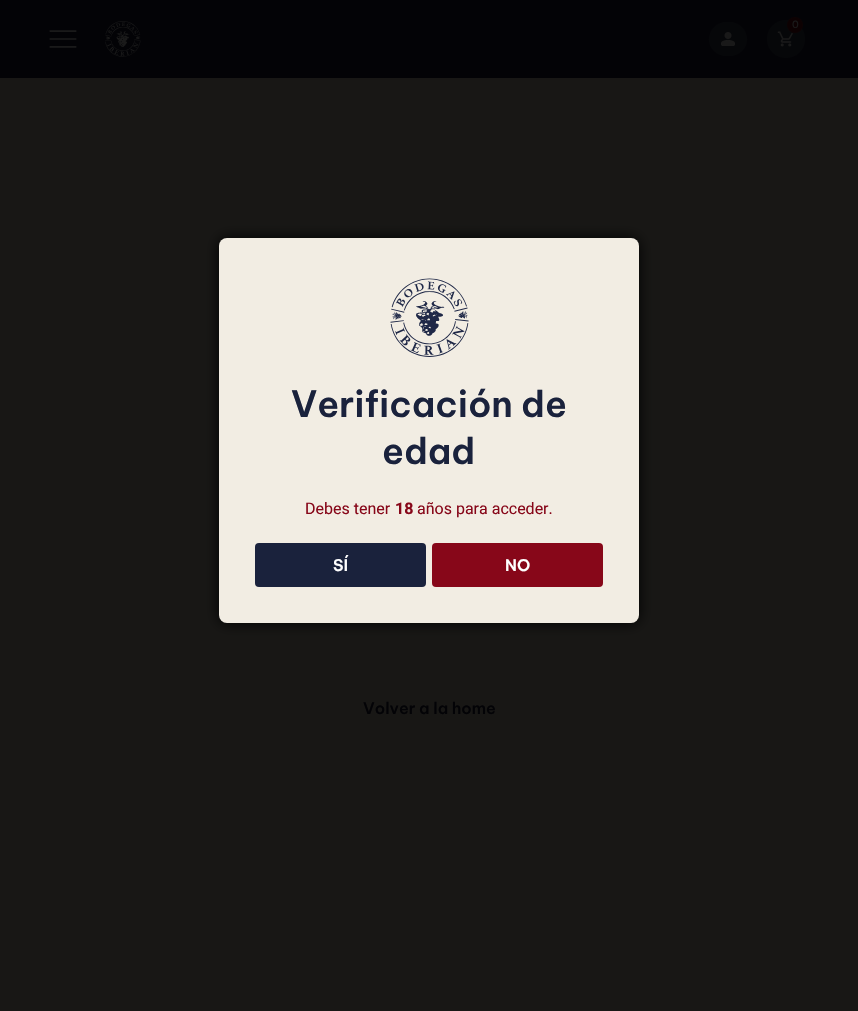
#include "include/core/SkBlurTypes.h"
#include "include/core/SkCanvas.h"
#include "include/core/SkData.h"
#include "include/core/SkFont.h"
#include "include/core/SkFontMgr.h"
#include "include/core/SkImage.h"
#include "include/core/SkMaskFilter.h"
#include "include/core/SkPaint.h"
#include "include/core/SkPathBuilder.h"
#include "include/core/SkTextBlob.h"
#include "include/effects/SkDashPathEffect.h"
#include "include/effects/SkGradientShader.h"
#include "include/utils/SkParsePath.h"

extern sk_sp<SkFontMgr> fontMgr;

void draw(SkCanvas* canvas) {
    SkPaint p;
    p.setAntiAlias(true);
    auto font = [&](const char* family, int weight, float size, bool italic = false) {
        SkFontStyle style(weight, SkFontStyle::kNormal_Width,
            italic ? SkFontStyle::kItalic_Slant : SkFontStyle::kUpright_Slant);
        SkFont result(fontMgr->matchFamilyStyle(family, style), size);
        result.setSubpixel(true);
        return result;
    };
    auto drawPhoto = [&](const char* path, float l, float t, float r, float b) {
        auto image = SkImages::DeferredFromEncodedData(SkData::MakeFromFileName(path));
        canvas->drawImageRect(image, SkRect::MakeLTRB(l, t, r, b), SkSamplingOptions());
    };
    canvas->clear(0xFF181715);
    p.setColor(0xFF030306);
    canvas->drawRect(SkRect::MakeLTRB(0, 0, 858, 78), p);
    drawPhoto("media/1.png", 49, 30, 77, 48);
    drawPhoto("media/2.png", 105, 21, 141, 57);
    p.setColor(0xFF060709);
    canvas->drawPath(SkPathBuilder().moveTo(726.5f, 22).lineTo(729.5f, 22).cubicTo(739, 22, 747, 30, 747, 39.5f).cubicTo(747, 48.5f, 739, 56, 729.5f, 56).lineTo(726.5f, 56).cubicTo(717, 56, 709, 48.5f, 709, 39.5f).cubicTo(709, 30, 717, 22, 726.5f, 22).close().detach(), p);
    drawPhoto("media/3.png", 721, 32, 735, 46);
    canvas->drawCircle(786, 39, 19, p);
    drawPhoto("media/4.png", 777, 31, 793, 47);
    p.setColor(0xFF0D0102);
    canvas->drawCircle(795, 25, 8, p);
    auto font1 = font("Be Vietnam Pro", 400, 10);
    p.setColor(0xFF191919);
    canvas->drawString("0", 792, 28, font1, p);
    p.setColor(0xFF000000);
    p.setMaskFilter(SkMaskFilter::MakeBlur(kNormal_SkBlurStyle, 7.5f));
    canvas->drawRoundRect(SkRect::MakeLTRB(219, 238, 639, 623), 8, 8, p);
    p.setMaskFilter(nullptr);
    p.setColor(0xFFF2EDE3);
    canvas->drawRoundRect(SkRect::MakeLTRB(219, 238, 639, 623), 8, 8, p);
    drawPhoto("media/5.png", 390, 278, 469, 357);
    auto font2 = font("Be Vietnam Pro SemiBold", 600, 36);
    p.setColor(0xFF1A223C);
    canvas->drawString("Verificación de", 291, 417, font2, p);
    canvas->drawString("edad", 382, 464, font2, p);
    auto font3 = font("Roboto", 400, 16);
    p.setColor(0xFF870719);
    canvas->drawString("Debes tener", 305, 514, font3, p);
    auto font4 = font("Roboto", 700, 16);
    canvas->drawString("18", 395, 514, font4, p);
    canvas->drawString("años para acceder.", 417, 514, font3, p);
    p.setColor(0xFF1A223C);
    canvas->drawRoundRect(SkRect::MakeLTRB(255, 543, 426, 587), 4, 4, p);
    auto font5 = font("Be Vietnam Pro SemiBold", 600, 16);
    p.setColor(0xFFFFFFFF);
    canvas->drawString("SÍ", 333, 571, font5, p);
    p.setColor(0xFF870719);
    canvas->drawRoundRect(SkRect::MakeLTRB(432, 543, 603, 587), 4, 4, p);
    p.setColor(0xFFFFFFFF);
    canvas->drawString("NO", 505, 571, font5, p);
    p.setColor(0xFF030306);
    canvas->drawString("Volver a la home", 363, 714, font5, p);
}
